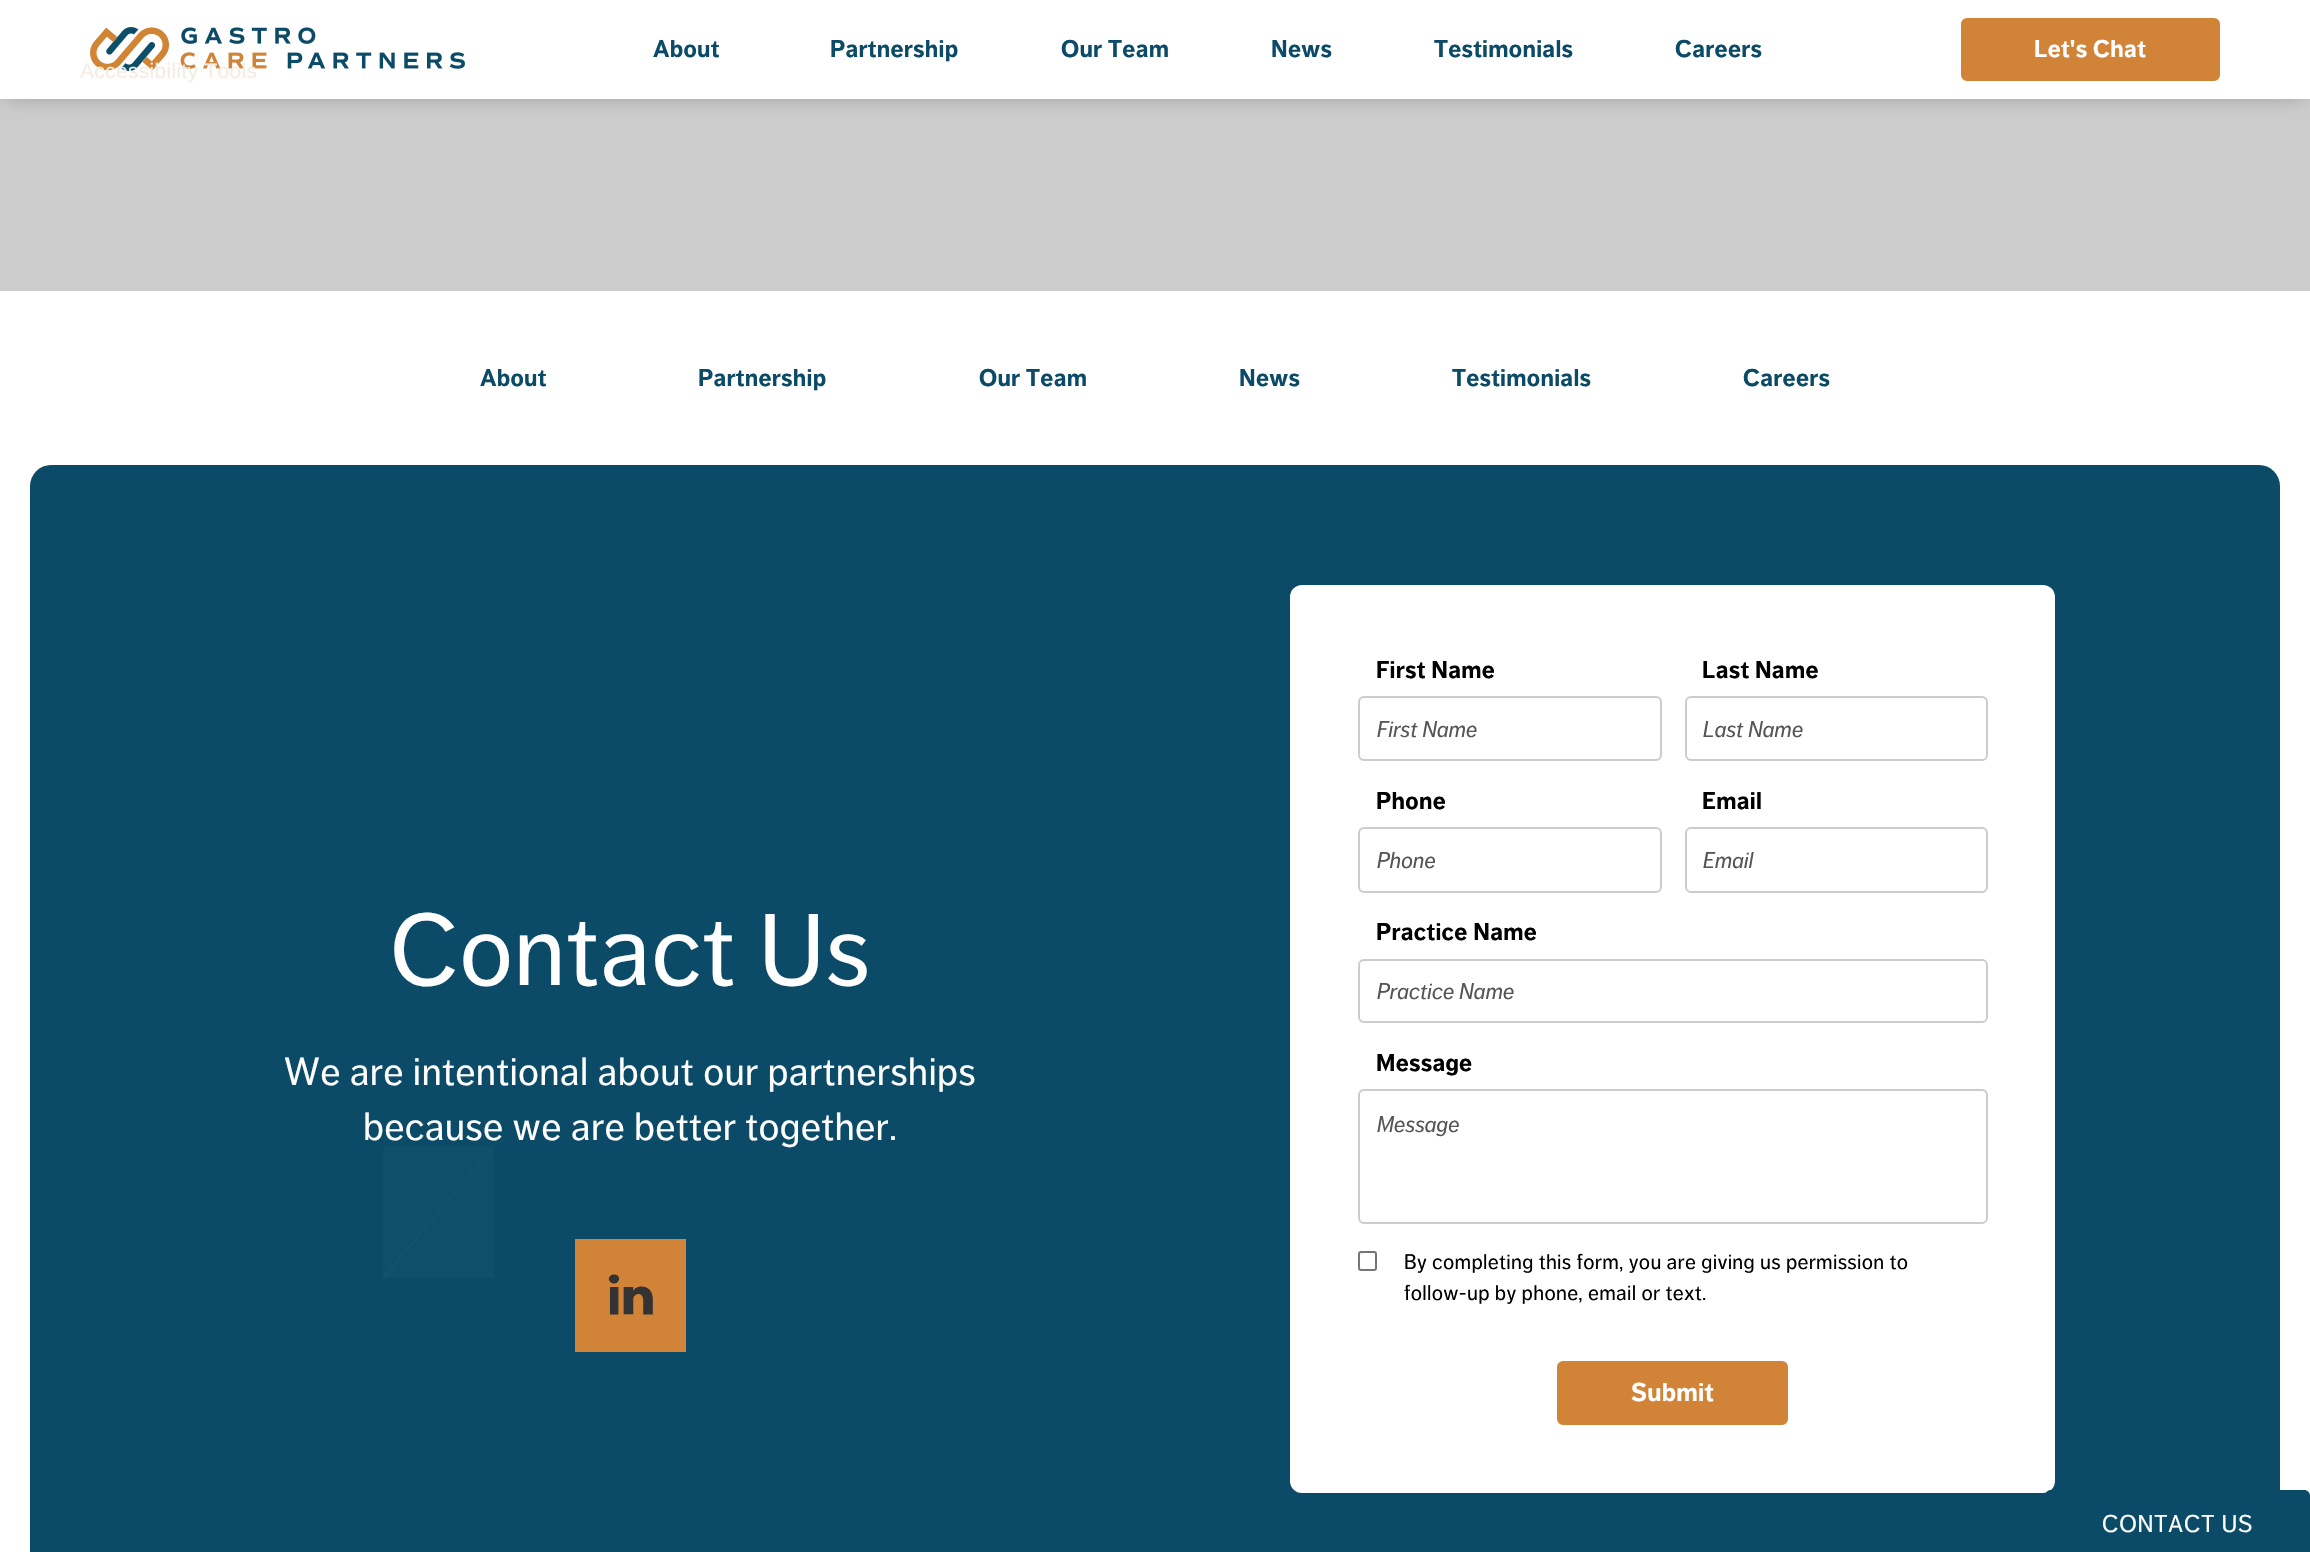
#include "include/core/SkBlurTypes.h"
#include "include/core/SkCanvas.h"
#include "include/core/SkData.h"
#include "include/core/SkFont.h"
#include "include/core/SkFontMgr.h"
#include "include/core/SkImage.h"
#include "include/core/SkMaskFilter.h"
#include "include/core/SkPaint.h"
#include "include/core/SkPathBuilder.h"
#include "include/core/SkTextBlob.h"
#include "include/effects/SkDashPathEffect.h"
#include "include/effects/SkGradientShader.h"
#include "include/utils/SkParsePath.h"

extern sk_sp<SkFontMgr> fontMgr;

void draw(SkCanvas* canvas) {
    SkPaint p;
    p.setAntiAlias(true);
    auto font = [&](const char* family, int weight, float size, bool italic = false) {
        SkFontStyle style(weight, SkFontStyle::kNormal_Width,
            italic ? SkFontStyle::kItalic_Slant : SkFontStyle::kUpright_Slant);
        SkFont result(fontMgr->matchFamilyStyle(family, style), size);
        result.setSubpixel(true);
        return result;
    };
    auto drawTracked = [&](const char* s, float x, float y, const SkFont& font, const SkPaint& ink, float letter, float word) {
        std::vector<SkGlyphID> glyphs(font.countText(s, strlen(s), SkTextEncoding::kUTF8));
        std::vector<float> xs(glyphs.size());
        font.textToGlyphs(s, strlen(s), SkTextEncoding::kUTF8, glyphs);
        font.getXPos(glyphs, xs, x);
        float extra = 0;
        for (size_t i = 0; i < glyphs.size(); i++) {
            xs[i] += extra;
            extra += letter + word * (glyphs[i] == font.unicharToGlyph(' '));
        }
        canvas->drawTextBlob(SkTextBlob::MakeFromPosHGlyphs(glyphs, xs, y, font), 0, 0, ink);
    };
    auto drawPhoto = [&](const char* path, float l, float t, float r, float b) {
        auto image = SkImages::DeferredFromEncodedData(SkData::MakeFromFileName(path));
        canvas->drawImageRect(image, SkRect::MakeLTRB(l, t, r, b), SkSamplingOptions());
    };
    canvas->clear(0xFFFFFFFF);
    p.setColor(0xFFCCCCCC);
    canvas->drawRect(SkRect::MakeLTRB(0, 99, 2310, 291), p);
    p.setColor(0x66141414);
    p.setMaskFilter(SkMaskFilter::MakeBlur(kNormal_SkBlurStyle, 11));
    canvas->drawRect(SkRect::MakeLTRB(6, 6, 2304, 93), p);
    p.setMaskFilter(nullptr);
    p.setColor(0xFFFFFFFF);
    canvas->drawRect(SkRect::MakeLTRB(0, 0, 2310, 99), p);
    drawPhoto("media/1.png", 90, 27, 465, 71);
    auto font1 = font("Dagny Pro", 700, 24);
    p.setColor(0xFF0B4B67);
    {
        const struct { const char* s; float x, y; } items[] = {
            {"About", 653, 57},
            {"Partnership", 830, 57},
            {"Our Team", 1061, 57},
            {"News", 1271, 57},
            {"Testimonials", 1434, 57},
            {"Careers", 1675, 57},
        };
        for (auto [s, x, y] : items) {
            drawTracked(s, x, y, font1, p, 0.3f, 0);
        }
    }
    p.setColor(0xFFD18437);
    canvas->drawRoundRect(SkRect::MakeLTRB(1962, 19, 2219, 80), 5, 5, p);
    p.setStyle(SkPaint::kStroke_Style);
    p.setStrokeWidth(2);
    canvas->drawRoundRect(SkRect::MakeLTRB(1962, 19, 2219, 80), 5, 5, p);
    p.setStyle(SkPaint::kFill_Style);
    p.setColor(0xFFFFFFFF);
    drawTracked("Let's Chat", 2034, 57, font1, p, 0.3f, 0);
    auto font2 = font("Liberation Sans", 400, 21);
    p.setColor(0xFFF2EDE5);
    drawTracked("Accessibility Tools", 80, 78, font2, p, 0.3f, 0);
    p.setColor(0xFF0B4B67);
    {
        const struct { const char* s; float x, y; } items[] = {
            {"About", 480, 386},
            {"Partnership", 698, 386},
            {"Our Team", 979, 386},
            {"News", 1239, 386},
            {"Testimonials", 1452, 386},
            {"Careers", 1743, 386},
        };
        for (auto [s, x, y] : items) {
            drawTracked(s, x, y, font1, p, 0.3f, 0);
        }
    }
    canvas->drawRoundRect(SkRect::MakeLTRB(30, 465, 2280, 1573), 21, 21, p);
    auto font3 = font("Dagny Pro", 400, 100.5f);
    p.setColor(0xFFFFFFFF);
    drawTracked("Contact Us", 390, 985, font3, p, 0.3f, 0);
    auto font4 = font("Dagny Pro", 400, 39);
    drawTracked("We are intentional about our partnerships", 284, 1085, font4, p, 0.3f, 0);
    drawPhoto("media/3.png", 383, 1147, 494, 1278);
    drawTracked("because we are better together.", 363, 1140, font4, p, 0.3f, 0);
    p.setColor(0xFFD18437);
    canvas->drawRect(SkRect::MakeLTRB(575, 1239, 686, 1352), p);
    drawPhoto("media/2.png", 608, 1274, 653, 1315);
    p.setColor(0xFFFFFFFF);
    canvas->drawRoundRect(SkRect::MakeLTRB(1290, 585, 2055, 1493), 12, 12, p);
    p.setColor(0xFF000000);
    drawTracked("First Name", 1376, 678, font1, p, 0.3f, 0);
    p.setStyle(SkPaint::kStroke_Style);
    p.setColor(0xFFCCCCCC);
    canvas->drawRoundRect(SkRect::MakeLTRB(1359, 697, 1661, 760), 5, 5, p);
    auto font5 = font("Dagny Pro", 400, 22.5f, true);
    p.setStyle(SkPaint::kFill_Style);
    p.setColor(0xFF555555);
    canvas->drawString("First Name", 1377, 737, font5, p);
    p.setColor(0xFF000000);
    drawTracked("Last Name", 1702, 678, font1, p, 0.3f, 0);
    p.setStyle(SkPaint::kStroke_Style);
    p.setColor(0xFFCCCCCC);
    canvas->drawRoundRect(SkRect::MakeLTRB(1686, 697, 1987, 760), 5, 5, p);
    p.setStyle(SkPaint::kFill_Style);
    p.setColor(0xFF555555);
    canvas->drawString("Last Name", 1703, 737, font5, p);
    p.setColor(0xFF000000);
    drawTracked("Phone", 1376, 809, font1, p, 0.3f, 0);
    p.setStyle(SkPaint::kStroke_Style);
    p.setColor(0xFFCCCCCC);
    canvas->drawRoundRect(SkRect::MakeLTRB(1359, 828, 1661, 892), 5, 5, p);
    p.setStyle(SkPaint::kFill_Style);
    p.setColor(0xFF555555);
    canvas->drawString("Phone", 1377, 868, font5, p);
    p.setColor(0xFF000000);
    drawTracked("Email", 1702, 809, font1, p, 0.3f, 0);
    p.setStyle(SkPaint::kStroke_Style);
    p.setColor(0xFFCCCCCC);
    canvas->drawRoundRect(SkRect::MakeLTRB(1686, 828, 1987, 892), 5, 5, p);
    p.setStyle(SkPaint::kFill_Style);
    p.setColor(0xFF555555);
    canvas->drawString("Email", 1703, 868, font5, p);
    p.setColor(0xFF000000);
    drawTracked("Practice Name", 1376, 940, font1, p, 0.3f, 0);
    p.setStyle(SkPaint::kStroke_Style);
    p.setColor(0xFFCCCCCC);
    canvas->drawRoundRect(SkRect::MakeLTRB(1359, 960, 1987, 1022), 5, 5, p);
    p.setStyle(SkPaint::kFill_Style);
    p.setColor(0xFF555555);
    canvas->drawString("Practice Name", 1377, 999, font5, p);
    p.setColor(0xFF000000);
    drawTracked("Message", 1376, 1071, font1, p, 0.3f, 0);
    p.setStyle(SkPaint::kStroke_Style);
    p.setColor(0xFFCCCCCC);
    canvas->drawRoundRect(SkRect::MakeLTRB(1359, 1090, 1987, 1223), 5, 5, p);
    p.setStyle(SkPaint::kFill_Style);
    p.setColor(0xFF555555);
    canvas->drawString("Message", 1377, 1132, font5, p);
    p.setStyle(SkPaint::kStroke_Style);
    p.setColor(0xFF767676);
    canvas->drawRoundRect(SkRect::MakeLTRB(1359, 1252, 1376, 1270), 2, 2, p);
    auto font6 = font("Dagny Pro", 400, 21);
    p.setStyle(SkPaint::kFill_Style);
    p.setColor(0xFF000000);
    drawTracked("By completing this form, you are giving us permission to", 1404, 1269, font6, p, 0.3f, 0);
    drawTracked("follow-up by phone, email or text.", 1404, 1300, font6, p, 0.3f, 0);
    p.setColor(0xFFD18437);
    canvas->drawRoundRect(SkRect::MakeLTRB(1558, 1362, 1787, 1424), 5, 5, p);
    p.setStyle(SkPaint::kStroke_Style);
    canvas->drawRoundRect(SkRect::MakeLTRB(1558, 1362, 1787, 1424), 5, 5, p);
    auto font7 = font("Dagny Pro", 700, 25.5f);
    p.setStyle(SkPaint::kFill_Style);
    p.setColor(0xFFFFFFFF);
    drawTracked("Submit", 1631, 1401, font7, p, 0.3f, 0);
    p.setColor(0xFF0B4B67);
    canvas->drawPath(SkPathBuilder().moveTo(2051, 1490).lineTo(2304, 1490).cubicTo(2307.5f, 1490, 2310, 1492.5f, 2310, 1496).lineTo(2310, 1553).lineTo(2045, 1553).lineTo(2045, 1496).cubicTo(2045, 1492.5f, 2047.5f, 1490, 2051, 1490).close().detach(), p);
    auto font8 = font("Dagny Pro", 400, 24);
    p.setColor(0xFFFFFFFF);
    drawTracked("CONTACT US", 2102, 1532, font8, p, 0.75f, 0);
}
